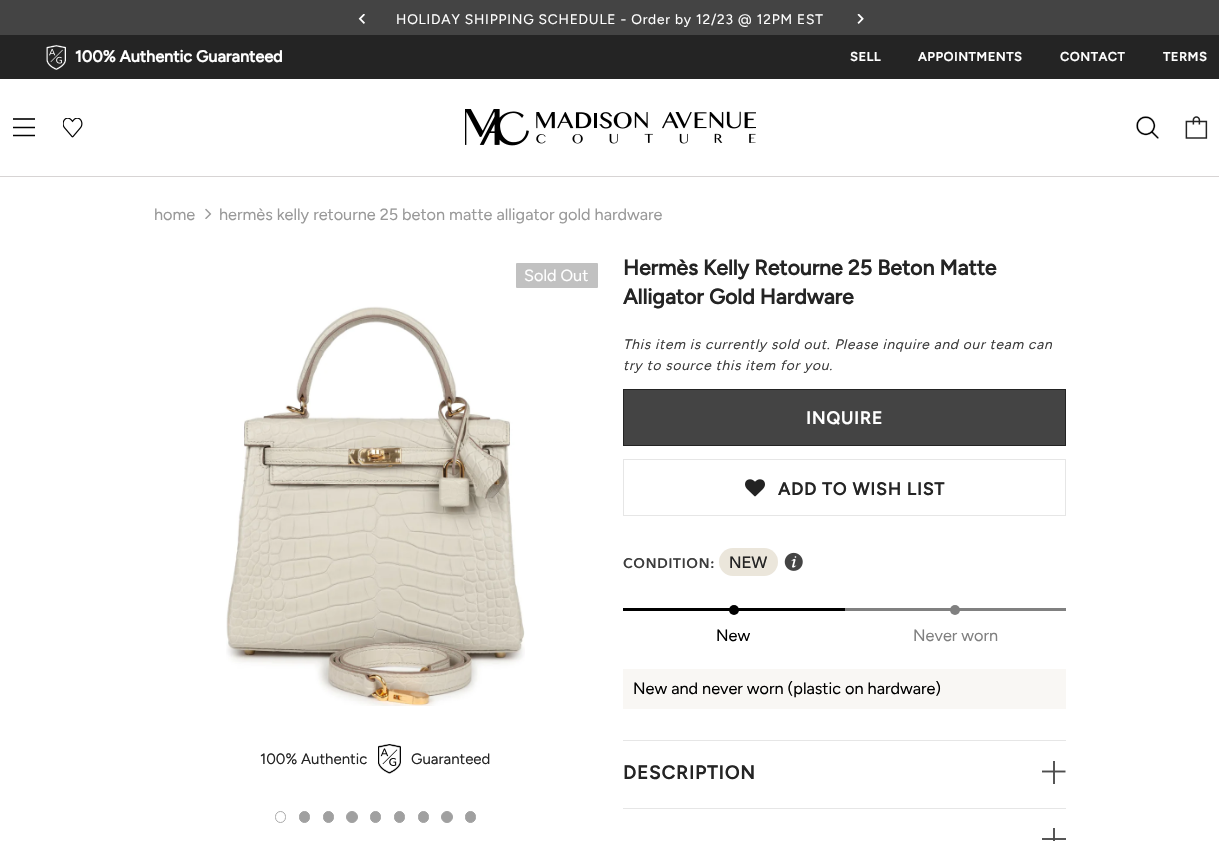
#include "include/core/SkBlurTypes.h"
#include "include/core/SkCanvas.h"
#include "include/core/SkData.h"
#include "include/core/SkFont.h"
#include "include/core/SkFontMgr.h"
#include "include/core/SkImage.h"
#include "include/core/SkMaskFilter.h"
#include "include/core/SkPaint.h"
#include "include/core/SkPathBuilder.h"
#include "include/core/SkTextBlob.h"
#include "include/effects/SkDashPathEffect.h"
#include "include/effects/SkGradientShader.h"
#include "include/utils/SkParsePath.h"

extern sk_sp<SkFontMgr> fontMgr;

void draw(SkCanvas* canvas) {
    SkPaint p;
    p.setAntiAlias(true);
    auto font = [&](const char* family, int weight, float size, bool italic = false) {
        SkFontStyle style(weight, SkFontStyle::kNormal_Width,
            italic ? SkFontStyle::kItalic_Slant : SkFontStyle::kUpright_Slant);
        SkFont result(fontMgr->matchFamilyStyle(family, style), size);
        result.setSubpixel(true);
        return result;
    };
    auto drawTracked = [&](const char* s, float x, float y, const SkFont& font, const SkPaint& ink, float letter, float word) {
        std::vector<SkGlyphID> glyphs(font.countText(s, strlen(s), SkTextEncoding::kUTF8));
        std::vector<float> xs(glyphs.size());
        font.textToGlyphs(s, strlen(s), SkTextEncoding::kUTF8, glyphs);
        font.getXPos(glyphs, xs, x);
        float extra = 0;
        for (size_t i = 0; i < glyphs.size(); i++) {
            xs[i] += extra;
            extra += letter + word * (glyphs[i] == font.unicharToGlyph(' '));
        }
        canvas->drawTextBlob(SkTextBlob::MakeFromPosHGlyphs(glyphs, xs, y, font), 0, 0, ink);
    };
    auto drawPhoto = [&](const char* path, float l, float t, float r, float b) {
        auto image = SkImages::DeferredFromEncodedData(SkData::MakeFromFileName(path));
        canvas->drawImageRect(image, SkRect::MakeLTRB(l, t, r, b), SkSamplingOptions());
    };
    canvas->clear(0xFFFFFFFF);
    p.setColor(0xFF565656);
    canvas->drawRect(SkRect::MakeLTRB(1053, 828, 1055, 841), p);
    p.setColor(0xFF444444);
    canvas->drawRect(SkRect::MakeLTRB(0, 0, 1219, 35), p);
    drawPhoto("media/1.png", 358, 14, 365, 24);
    auto font1 = font("Figtree", 400, 13.75f);
    p.setColor(0xFFFFFFFF);
    drawTracked("HOLIDAY SHIPPING SCHEDULE - Order by 12/23 @ 12PM EST", 396, 24, font1, p, 0.8f, 0);
    drawPhoto("media/2.png", 857, 14, 864, 24);
    p.setColor(0xFF242424);
    canvas->drawRect(SkRect::MakeLTRB(0, 35, 1219, 79), p);
    drawPhoto("media/3.png", 46, 45, 66, 70);
    auto font2 = font("Figtree", 700, 16.25f);
    p.setColor(0xFFFFFFFF);
    canvas->drawString("100% Authentic Guaranteed", 75, 62, font2, p);
    auto font3 = font("Figtree", 700, 12.5f);
    {
        const struct { const char* s; float x, y; } items[] = {
            {"SELL", 850, 61},
            {"APPOINTMENTS", 918, 61},
            {"CONTACT", 1060, 61},
            {"TERMS", 1163, 61},
        };
        for (auto [s, x, y] : items) {
            drawTracked(s, x, y, font3, p, 0.75f, 0);
        }
    }
    p.setColor(0xFF333333);
    canvas->drawRect(SkRect::MakeLTRB(13, 118, 35, 120), p);
    canvas->save();
    canvas->clipRect(SkRect::MakeLTRB(13, 115, 35, 140));
    p.setStyle(SkPaint::kStroke_Style);
    p.setStrokeWidth(1.6f);
    p.setColor(0xFF000000);
    canvas->drawPath(SkPathBuilder().moveTo(12.5f, 127.5f).lineTo(35, 127.5f).moveTo(12.5f, 135.5f).lineTo(35, 135.5f).detach(), p);
    canvas->restore();
    drawPhoto("media/4.png", 63, 118, 83, 138);
    drawPhoto("media/5.png", 465, 109, 756, 146);
    drawPhoto("media/6.png", 1136, 116, 1159, 139);
    drawPhoto("media/7.png", 1185, 116, 1208, 139);
    p.setStyle(SkPaint::kFill_Style);
    p.setColor(0xFFD7D4D4);
    canvas->drawRect(SkRect::MakeLTRB(0, 176, 1219, 177), p);
    auto font4 = font("Figtree", 400, 16.25f);
    p.setColor(0xFF999999);
    canvas->drawString("home", 154, 220, font4, p);
    drawPhoto("media/8.png", 205, 208, 212, 219);
    canvas->drawString("hermès kelly retourne 25 beton matte alligator gold hardware", 219, 220, font4, p);
    p.setColor(0xFFC1C1C1);
    canvas->drawRoundRect(SkRect::MakeLTRB(516, 263, 598, 288), 1, 1, p);
    p.setColor(0xFFFFFFFF);
    canvas->drawString("Sold Out", 524, 281, font4, p);
    drawPhoto("media/9.png", 226, 306, 525, 706);
    auto font5 = font("Figtree", 400, 15);
    p.setColor(0xFF242424);
    canvas->drawString("100% Authentic", 260, 764, font5, p);
    drawPhoto("media/10.png", 378, 744, 401, 774);
    canvas->drawString("Guaranteed", 411, 764, font5, p);
    p.setStyle(SkPaint::kStroke_Style);
    p.setStrokeWidth(1);
    p.setColor(0xFFA9A9A9);
    canvas->drawRoundRect(SkRect::MakeLTRB(275.5f, 811.5f, 285.5f, 822.5f), 5, 5, p);
    p.setStyle(SkPaint::kFill_Style);
    p.setColor(0xFFA0A0A0);
    canvas->drawRoundRect(SkRect::MakeLTRB(299.5f, 811.5f, 309.5f, 822.5f), 5, 5, p);
    p.setStyle(SkPaint::kStroke_Style);
    canvas->drawRoundRect(SkRect::MakeLTRB(299.5f, 811.5f, 309.5f, 822.5f), 5, 5, p);
    p.setStyle(SkPaint::kFill_Style);
    canvas->drawRoundRect(SkRect::MakeLTRB(323.5f, 811.5f, 333.5f, 822.5f), 5, 5, p);
    p.setStyle(SkPaint::kStroke_Style);
    canvas->drawRoundRect(SkRect::MakeLTRB(323.5f, 811.5f, 333.5f, 822.5f), 5, 5, p);
    p.setStyle(SkPaint::kFill_Style);
    canvas->drawCircle(352, 817, 5.5f, p);
    p.setStyle(SkPaint::kStroke_Style);
    canvas->drawCircle(352, 817, 5.5f, p);
    p.setStyle(SkPaint::kFill_Style);
    canvas->drawRoundRect(SkRect::MakeLTRB(370.5f, 811.5f, 380.5f, 822.5f), 5, 5, p);
    p.setStyle(SkPaint::kStroke_Style);
    canvas->drawRoundRect(SkRect::MakeLTRB(370.5f, 811.5f, 380.5f, 822.5f), 5, 5, p);
    p.setStyle(SkPaint::kFill_Style);
    canvas->drawRoundRect(SkRect::MakeLTRB(394.5f, 811.5f, 404.5f, 822.5f), 5, 5, p);
    p.setStyle(SkPaint::kStroke_Style);
    canvas->drawRoundRect(SkRect::MakeLTRB(394.5f, 811.5f, 404.5f, 822.5f), 5, 5, p);
    p.setStyle(SkPaint::kFill_Style);
    canvas->drawRoundRect(SkRect::MakeLTRB(418.5f, 811.5f, 428.5f, 822.5f), 5, 5, p);
    p.setStyle(SkPaint::kStroke_Style);
    canvas->drawRoundRect(SkRect::MakeLTRB(418.5f, 811.5f, 428.5f, 822.5f), 5, 5, p);
    p.setStyle(SkPaint::kFill_Style);
    canvas->drawCircle(447, 817, 5.5f, p);
    p.setStyle(SkPaint::kStroke_Style);
    canvas->drawCircle(447, 817, 5.5f, p);
    p.setStyle(SkPaint::kFill_Style);
    canvas->drawRoundRect(SkRect::MakeLTRB(465.5f, 811.5f, 475.5f, 822.5f), 5, 5, p);
    p.setStyle(SkPaint::kStroke_Style);
    canvas->drawRoundRect(SkRect::MakeLTRB(465.5f, 811.5f, 475.5f, 822.5f), 5, 5, p);
    auto font6 = font("Figtree", 700, 21.25f);
    p.setStyle(SkPaint::kFill_Style);
    p.setColor(0xFF242424);
    canvas->drawString("Hermès Kelly Retourne 25 Beton Matte", 623, 275, font6, p);
    canvas->drawString("Alligator Gold Hardware", 623, 304, font6, p);
    auto font7 = font("Figtree", 400, 13.75f, true);
    p.setColor(0xFF3C3C3C);
    drawTracked("This item is currently sold out. Please inquire and our team can", 623, 349, font7, p, 0.75f, 0);
    drawTracked("try to source this item for you.", 623, 370, font7, p, 0.75f, 0);
    p.setColor(0xFF444444);
    canvas->drawRect(SkRect::MakeLTRB(623.5f, 389.5f, 1065.5f, 445.5f), p);
    p.setStyle(SkPaint::kStroke_Style);
    p.setColor(0xFF232323);
    canvas->drawRect(SkRect::MakeLTRB(623.5f, 389.5f, 1065.5f, 445.5f), p);
    auto font8 = font("Figtree", 700, 17.5f);
    p.setStyle(SkPaint::kFill_Style);
    p.setColor(0xFFFFFFFF);
    drawTracked("INQUIRE", 806, 424, font8, p, 0.9f, 0);
    p.setStyle(SkPaint::kStroke_Style);
    p.setColor(0xFFE6E6E6);
    canvas->drawRect(SkRect::MakeLTRB(623.5f, 459.5f, 1065.5f, 515.5f), p);
    drawPhoto("media/11.png", 745, 479, 765, 497);
    p.setStyle(SkPaint::kFill_Style);
    p.setColor(0xFF242424);
    drawTracked("ADD TO WISH LIST", 778, 495, font8, p, 0.9f, 0);
    auto font9 = font("Avenir Next", 600, 13.75f);
    p.setColor(0xFF3C3C3C);
    drawTracked("CONDITION:", 623, 568, font9, p, 0.75f, 0);
    p.setColor(0xFFEBE6DB);
    canvas->drawRoundRect(SkRect::MakeLTRB(719, 548, 778, 576), 14, 14, p);
    auto font10 = font("Avenir Next", 500, 16.25f);
    p.setColor(0xFF242424);
    canvas->drawString("NEW", 729, 568, font10, p);
    drawPhoto("media/12.png", 784, 552, 803, 571);
    p.setColor(0xFF000000);
    canvas->drawRect(SkRect::MakeLTRB(623, 608, 845, 611), p);
    canvas->drawCircle(734, 610, 5, p);
    canvas->drawString("New", 716, 641, font4, p);
    p.setColor(0xFF808080);
    canvas->drawRect(SkRect::MakeLTRB(845, 608, 1066, 611), p);
    canvas->drawCircle(955, 610, 5, p);
    canvas->drawString("Never worn", 913, 641, font4, p);
    p.setColor(0xFFF9F7F4);
    canvas->drawRect(SkRect::MakeLTRB(623, 669, 1066, 709), p);
    p.setColor(0xFF000000);
    canvas->drawString("New and never worn (plastic on hardware)", 633, 694, font4, p);
    p.setColor(0xFFE6E6E6);
    canvas->drawRect(SkRect::MakeLTRB(623, 740, 1066, 741), p);
    auto font11 = font("Figtree", 700, 18.75f);
    p.setColor(0xFF242424);
    drawTracked("DESCRIPTION", 623, 779, font11, p, 1, 0);
    p.setStyle(SkPaint::kStroke_Style);
    p.setStrokeWidth(1.9f);
    p.setColor(0xFF4D4D4D);
    canvas->drawPath(SkPathBuilder().moveTo(1042, 771.5f).lineTo(1065.5f, 771.5f).detach(), p);
    p.setStyle(SkPaint::kFill_Style);
    {
        const struct { float l, t, r, b; SkColor color; } items[] = {
            {1053, 761, 1055, 784, 0xF24D4D4D},
            {623, 808, 1066, 809, 0xFFE6E6E6},
            {1042, 838, 1066, 840, 0xFF565656},
            {1053, 838, 1055, 840, 0xFF4D4D4D},
        };
        for (auto [l, t, r, b, color] : items) {
            p.setColor(color);
            canvas->drawRect(SkRect::MakeLTRB(l, t, r, b), p);
        }
    }
}
